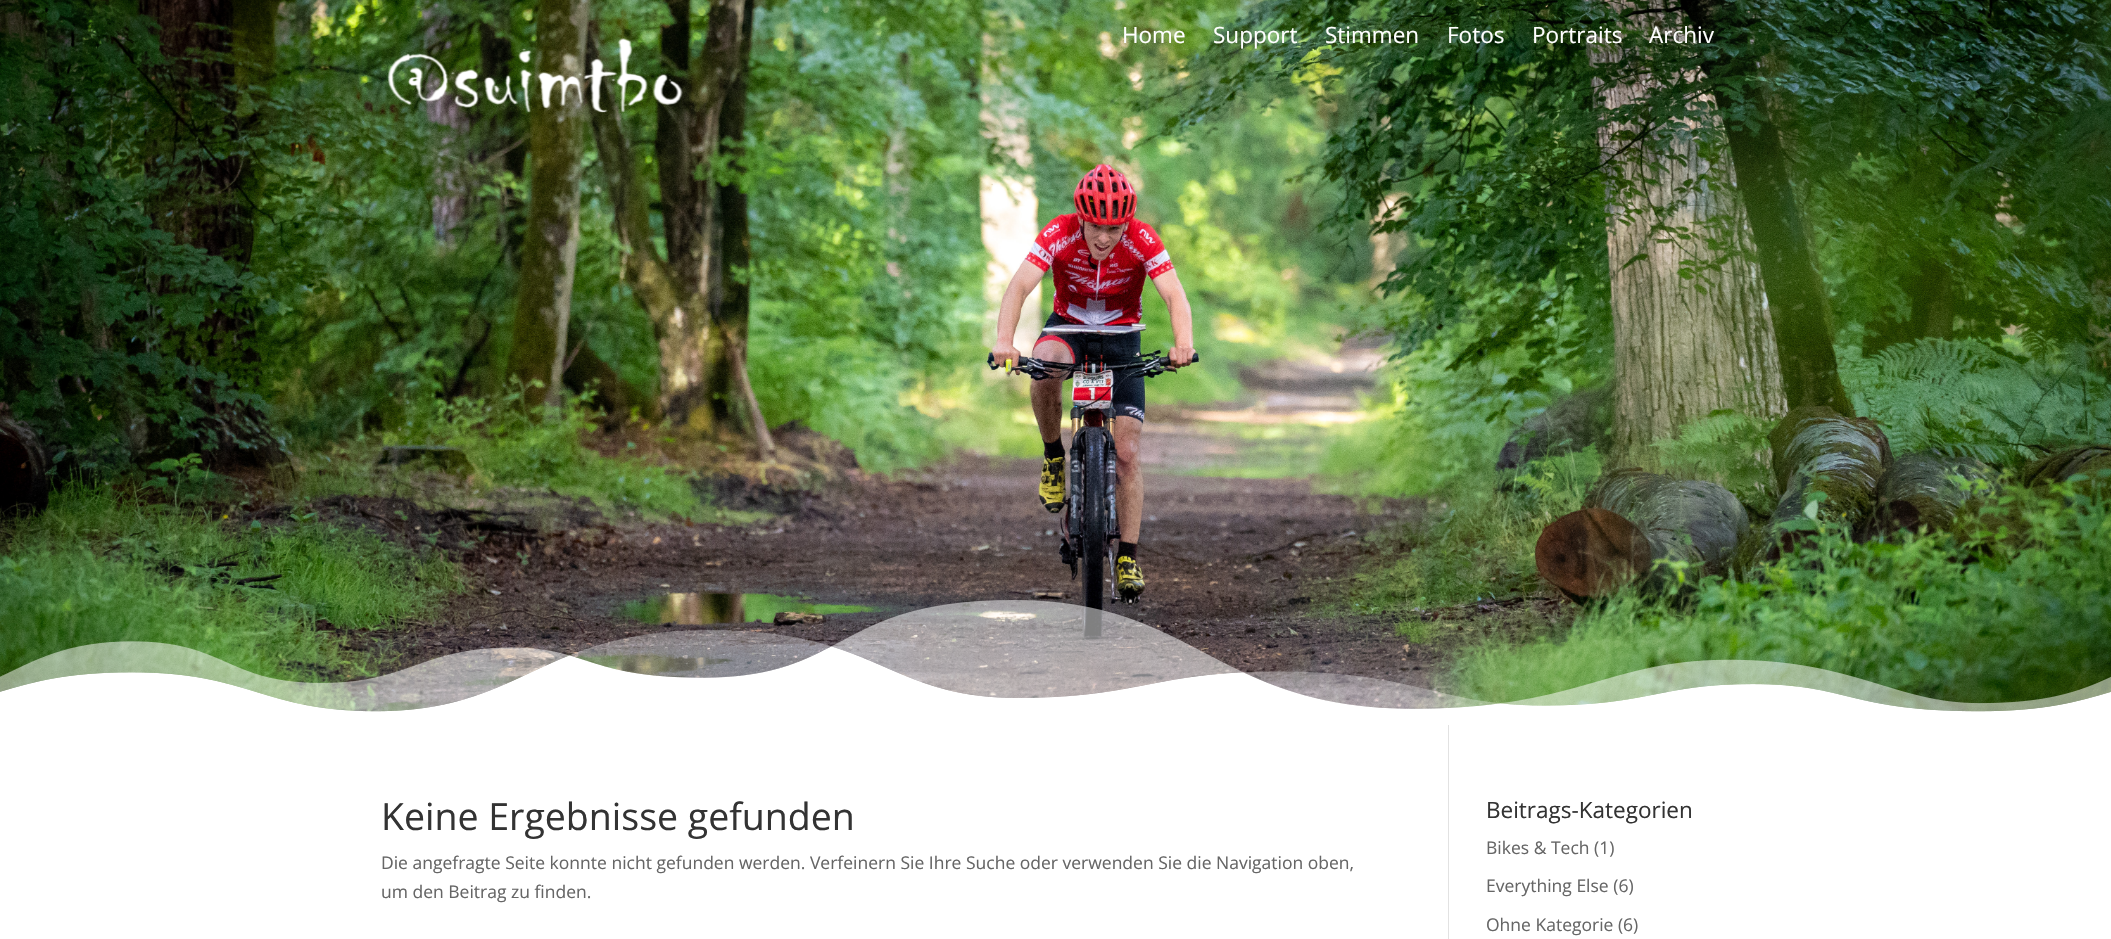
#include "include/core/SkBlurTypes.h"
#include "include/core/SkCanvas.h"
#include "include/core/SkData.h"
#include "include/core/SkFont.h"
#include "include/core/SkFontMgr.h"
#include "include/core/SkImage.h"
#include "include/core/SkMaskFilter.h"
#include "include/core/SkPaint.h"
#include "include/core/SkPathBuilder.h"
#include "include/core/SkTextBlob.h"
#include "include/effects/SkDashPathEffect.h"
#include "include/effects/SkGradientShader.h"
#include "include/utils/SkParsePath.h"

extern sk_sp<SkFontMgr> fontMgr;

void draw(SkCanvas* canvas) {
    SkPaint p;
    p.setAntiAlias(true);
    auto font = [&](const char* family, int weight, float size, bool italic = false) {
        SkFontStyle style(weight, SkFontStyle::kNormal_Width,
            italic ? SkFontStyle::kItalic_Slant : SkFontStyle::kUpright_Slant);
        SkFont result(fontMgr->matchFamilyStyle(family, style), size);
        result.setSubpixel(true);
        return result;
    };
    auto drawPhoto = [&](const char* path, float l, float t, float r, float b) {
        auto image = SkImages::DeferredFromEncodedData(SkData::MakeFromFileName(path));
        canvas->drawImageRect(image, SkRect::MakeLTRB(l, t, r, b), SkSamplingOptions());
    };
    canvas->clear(0xFFFFFFFF);
    drawPhoto("media/1.png", 0, 0, 2111, 712);
    drawPhoto("media/2.png", 387, 38, 683, 113);
    auto font1 = font("Open Sans", 400, 22.5f);
    p.setColor(0xFFFFFFFF);
    {
        const struct { const char* s; float x, y; } items[] = {
            {"Home", 1122, 43},
            {"Support", 1213, 43},
            {"Stimmen", 1325, 43},
            {"Fotos", 1447, 43},
            {"Portraits", 1532, 43},
            {"Archiv", 1649, 43},
        };
        for (auto [s, x, y] : items) {
            canvas->drawString(s, x, y, font1, p);
        }
    }
    drawPhoto("media/3.png", 0, 600, 2111, 725);
    p.setColor(0xFFE2E2E2);
    canvas->drawRect(SkRect::MakeLTRB(1448, 725, 1449, 939), p);
    auto font2 = font("Open Sans", 400, 37.5f);
    p.setColor(0xFF333333);
    canvas->drawString("Keine Ergebnisse gefunden", 381, 830, font2, p);
    auto font3 = font("Open Sans", 400, 17.5f);
    p.setColor(0xFF666666);
    canvas->drawString("Die angefragte Seite konnte nicht gefunden werden. Verfeinern Sie Ihre Suche oder verwenden Sie die Navigation oben,", 381, 869, font3, p);
    canvas->drawString("um den Beitrag zu finden.", 381, 898, font3, p);
    p.setColor(0xFF333333);
    canvas->drawString("Beitrags-Kategorien", 1486, 818, font1, p);
    p.setColor(0xFF666666);
    {
        const struct { const char* s; float x, y; } items[] = {
            {"Bikes & Tech (1)", 1486, 854},
            {"Everything Else (6)", 1486, 892},
            {"Ohne Kategorie (6)", 1486, 931},
        };
        for (auto [s, x, y] : items) {
            canvas->drawString(s, x, y, font3, p);
        }
    }
}
